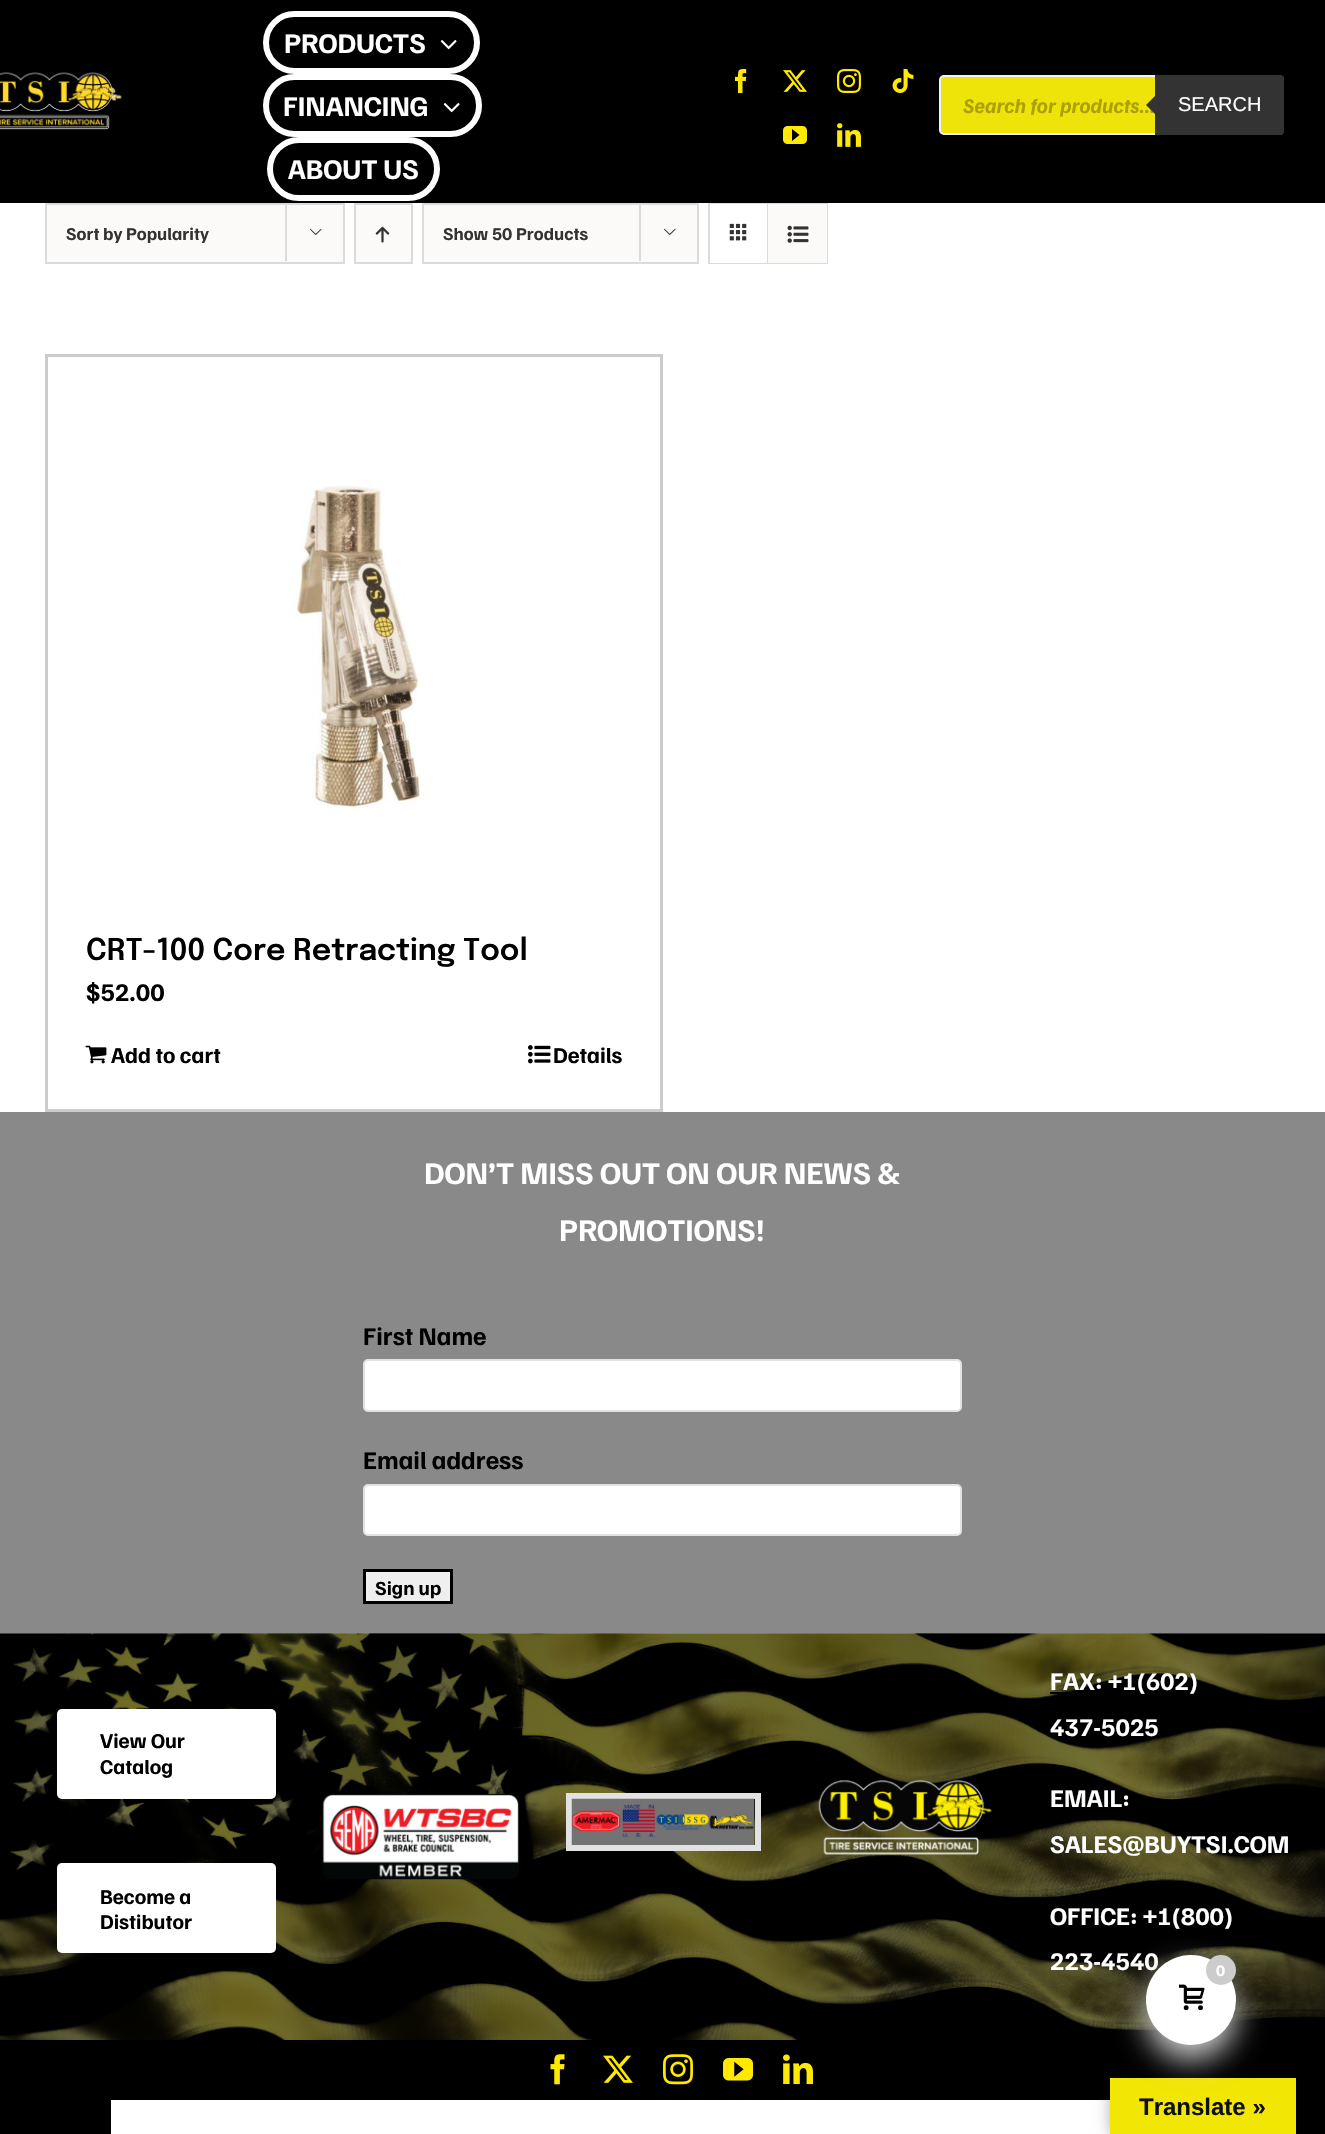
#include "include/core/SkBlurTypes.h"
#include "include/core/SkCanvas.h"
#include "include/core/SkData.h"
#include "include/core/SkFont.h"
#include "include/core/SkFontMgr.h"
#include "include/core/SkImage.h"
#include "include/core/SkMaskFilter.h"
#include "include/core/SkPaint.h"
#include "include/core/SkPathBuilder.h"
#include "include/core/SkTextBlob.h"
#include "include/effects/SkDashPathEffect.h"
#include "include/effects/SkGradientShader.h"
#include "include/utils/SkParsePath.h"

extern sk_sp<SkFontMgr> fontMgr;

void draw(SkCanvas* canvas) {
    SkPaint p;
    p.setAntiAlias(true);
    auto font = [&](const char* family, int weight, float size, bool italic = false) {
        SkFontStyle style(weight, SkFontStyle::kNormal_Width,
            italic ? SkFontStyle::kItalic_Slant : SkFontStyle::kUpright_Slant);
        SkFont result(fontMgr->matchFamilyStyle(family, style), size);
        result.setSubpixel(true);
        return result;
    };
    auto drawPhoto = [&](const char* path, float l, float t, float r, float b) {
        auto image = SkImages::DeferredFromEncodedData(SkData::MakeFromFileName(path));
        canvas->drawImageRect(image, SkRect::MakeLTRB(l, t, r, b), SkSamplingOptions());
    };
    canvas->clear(0xFFFFFFFF);
    p.setColor(0xFF000000);
    canvas->drawRect(SkRect::MakeLTRB(0, 0, 1325, 203), p);
    drawPhoto("media/1.png", 0, 72, 122, 130);
    p.setStyle(SkPaint::kStroke_Style);
    p.setStrokeWidth(6);
    p.setColor(0xFFFFFFFF);
    canvas->drawRoundRect(SkRect::MakeLTRB(266, 14, 477, 71), 28.5f, 28.5f, p);
    auto font1 = font("Familjen Grotesk", 700, 28.5f);
    p.setStyle(SkPaint::kFill_Style);
    canvas->drawString("PRODUCTS", 284, 53, font1, p);
    drawPhoto("media/2.png", 440, 40, 457, 50);
    p.setStyle(SkPaint::kStroke_Style);
    canvas->drawRoundRect(SkRect::MakeLTRB(266, 77, 479, 134), 28.5f, 28.5f, p);
    p.setStyle(SkPaint::kFill_Style);
    canvas->drawString("FINANCING", 283, 116, font1, p);
    drawPhoto("media/2.png", 443, 103, 460, 113);
    p.setStyle(SkPaint::kStroke_Style);
    canvas->drawRoundRect(SkRect::MakeLTRB(270, 140, 437, 198), 29, 29, p);
    p.setStyle(SkPaint::kFill_Style);
    canvas->drawString("ABOUT US", 288, 179, font1, p);
    drawPhoto("media/3.png", 735, 69, 747, 93);
    drawPhoto("media/4.png", 783, 70, 807, 92);
    drawPhoto("media/5.png", 837, 69, 861, 93);
    drawPhoto("media/6.png", 892, 69, 914, 93);
    drawPhoto("media/7.png", 783, 126, 807, 144);
    drawPhoto("media/8.png", 837, 123, 861, 147);
    p.setColor(0xFFEFE409);
    canvas->drawRoundRect(SkRect::MakeLTRB(940, 76, 1283, 134), 4, 4, p);
    p.setStyle(SkPaint::kStroke_Style);
    p.setStrokeWidth(2);
    p.setColor(0xFFF2F2F2);
    canvas->drawRoundRect(SkRect::MakeLTRB(940, 76, 1283, 134), 4, 4, p);
    auto font2 = font("Familjen Grotesk", 700, 21, true);
    p.setStyle(SkPaint::kFill_Style);
    p.setColor(0xFFACA006);
    canvas->drawString("Search for products...", 963, 113, font2, p);
    p.setColor(0xFF333333);
    canvas->drawPath(SkPathBuilder().moveTo(1155, 75).lineTo(1281, 75).cubicTo(1282.5f, 75, 1284, 76.5f, 1284, 78).lineTo(1284, 132).cubicTo(1284, 133.5f, 1282.5f, 135, 1281, 135).lineTo(1155, 135).close().detach(), p);
    canvas->drawPath(SkPathBuilder().moveTo(1158, 93).lineTo(1158, 117).lineTo(1146, 105).close().detach(), p);
    auto font3 = font("Liberation Sans", 400, 20);
    p.setColor(0xFFFFFFFF);
    canvas->drawString("SEARCH", 1178, 111, font3, p);
    p.setColor(0xFFFBFAF9);
    canvas->drawRect(SkRect::MakeLTRB(46, 204, 344, 263), p);
    p.setStyle(SkPaint::kStroke_Style);
    p.setColor(0xFFDBDBDB);
    canvas->drawRect(SkRect::MakeLTRB(46, 204, 344, 263), p);
    auto font4 = font("Familjen Grotesk", 700, 18);
    p.setStyle(SkPaint::kFill_Style);
    p.setColor(0xFF333333);
    canvas->drawString("Sort by Popularity", 66, 240, font4, p);
    p.setColor(0xFFDBDBDB);
    canvas->drawRect(SkRect::MakeLTRB(285, 203, 287, 261), p);
    drawPhoto("media/9.png", 310, 228, 322, 235);
    p.setColor(0xFFFBFAF9);
    canvas->drawRect(SkRect::MakeLTRB(355, 204, 412, 263), p);
    p.setStyle(SkPaint::kStroke_Style);
    p.setColor(0xFFDBDBDB);
    canvas->drawRect(SkRect::MakeLTRB(355, 204, 412, 263), p);
    drawPhoto("media/10.png", 375, 226, 390, 243);
    p.setStyle(SkPaint::kFill_Style);
    p.setColor(0xFFFBFAF9);
    canvas->drawRect(SkRect::MakeLTRB(423, 204, 698, 263), p);
    p.setStyle(SkPaint::kStroke_Style);
    p.setColor(0xFFDBDBDB);
    canvas->drawRect(SkRect::MakeLTRB(423, 204, 698, 263), p);
    p.setStyle(SkPaint::kFill_Style);
    p.setColor(0xFF333333);
    canvas->drawString("Show 50 Products", 443, 240, font4, p);
    p.setColor(0xFFDBDBDB);
    canvas->drawRect(SkRect::MakeLTRB(639, 203, 641, 261), p);
    drawPhoto("media/9.png", 664, 228, 676, 235);
    p.setStyle(SkPaint::kStroke_Style);
    canvas->drawRect(SkRect::MakeLTRB(709, 204, 827, 263), p);
    p.setStyle(SkPaint::kFill_Style);
    p.setColor(0xFFFFFFFF);
    canvas->drawRect(SkRect::MakeLTRB(710, 204, 767, 263), p);
    p.setColor(0xFFDBDBDB);
    canvas->drawRect(SkRect::MakeLTRB(767, 204, 768, 263), p);
    drawPhoto("media/11.png", 729, 223, 747, 241);
    p.setColor(0xFFFBFAF9);
    canvas->drawRect(SkRect::MakeLTRB(768, 204, 827, 263), p);
    drawPhoto("media/12.png", 787, 225, 809, 243);
    p.setStyle(SkPaint::kStroke_Style);
    p.setStrokeWidth(3);
    p.setColor(0xFFCCCCCC);
    canvas->drawRect(SkRect::MakeLTRB(46.5f, 355.5f, 661.5f, 1110.5f), p);
    drawPhoto("media/13.png", 291, 485, 421, 814);
    auto font5 = font("Epilogue", 600, 30);
    p.setStyle(SkPaint::kFill_Style);
    p.setColor(0xFF000000);
    canvas->drawString("CRT-100 Core Retracting Tool", 86, 960, font5, p);
    auto font6 = font("Familjen Grotesk", 700, 25.5f);
    canvas->drawString("$52.00", 86, 1001, font6, p);
    drawPhoto("media/14.png", 85, 1045, 107, 1064);
    auto font7 = font("Familjen Grotesk", 700, 22.5f);
    canvas->drawString("Add to cart", 111, 1063, font7, p);
    drawPhoto("media/15.png", 528, 1045, 551, 1064);
    canvas->drawString("Details", 553, 1063, font7, p);
    p.setColor(0xFF898989);
    canvas->drawRect(SkRect::MakeLTRB(0, 1112, 1325, 1634), p);
    auto font8 = font("Familjen Grotesk", 700, 31.5f);
    p.setColor(0xFFFFFFFF);
    canvas->drawString("DON’T MISS OUT ON OUR NEWS &", 424, 1184, font8, p);
    canvas->drawString("PROMOTIONS!", 559, 1241, font8, p);
    p.setColor(0xFF000000);
    canvas->drawString("First Name", 363, 1345, font6, p);
    p.setColor(0xFFFFFFFF);
    canvas->drawRoundRect(SkRect::MakeLTRB(364, 1360, 961, 1411), 4, 4, p);
    p.setStyle(SkPaint::kStroke_Style);
    p.setStrokeWidth(2);
    p.setColor(0xFFE2E2E2);
    canvas->drawRoundRect(SkRect::MakeLTRB(364, 1360, 961, 1411), 4, 4, p);
    p.setStyle(SkPaint::kFill_Style);
    p.setColor(0xFF000000);
    canvas->drawString("Email address", 363, 1469, font6, p);
    p.setColor(0xFFFFFFFF);
    canvas->drawRoundRect(SkRect::MakeLTRB(364, 1485, 961, 1535), 4, 4, p);
    p.setStyle(SkPaint::kStroke_Style);
    p.setColor(0xFFE2E2E2);
    canvas->drawRoundRect(SkRect::MakeLTRB(364, 1485, 961, 1535), 4, 4, p);
    p.setStyle(SkPaint::kFill_Style);
    p.setColor(0xFFEFEFEF);
    canvas->drawRect(SkRect::MakeLTRB(364.5f, 1570.5f, 451.5f, 1602.5f), p);
    p.setStyle(SkPaint::kStroke_Style);
    p.setStrokeWidth(3);
    p.setColor(0xFF000000);
    canvas->drawRect(SkRect::MakeLTRB(364.5f, 1570.5f, 451.5f, 1602.5f), p);
    auto font9 = font("Familjen Grotesk", 700, 20);
    p.setStyle(SkPaint::kFill_Style);
    canvas->drawString("Sign up", 375, 1595, font9, p);
    drawPhoto("media/16.png", 0, 1633, 1325, 2040);
    p.setColor(0xFFFFFFFF);
    canvas->drawRoundRect(SkRect::MakeLTRB(57, 1709, 276, 1799), 5, 5, p);
    auto font10 = font("Familjen Grotesk", 700, 21);
    p.setColor(0xFF000000);
    canvas->drawString("View Our", 100, 1748, font10, p);
    canvas->drawString("Catalog", 100, 1774, font10, p);
    p.setColor(0xFFFFFFFF);
    canvas->drawRoundRect(SkRect::MakeLTRB(57, 1863, 276, 1953), 5, 5, p);
    p.setColor(0xFF000000);
    canvas->drawString("Become a", 100, 1904, font10, p);
    canvas->drawString("Distibutor", 100, 1929, font10, p);
    drawPhoto("media/17.png", 322, 1794, 519, 1880);
    p.setStyle(SkPaint::kStroke_Style);
    p.setStrokeWidth(6);
    p.setColor(0xFFE2E2E2);
    canvas->drawRect(SkRect::MakeLTRB(569, 1796, 758, 1848), p);
    drawPhoto("media/18.png", 571, 1798, 755, 1845);
    drawPhoto("media/19.png", 818, 1780, 992, 1855);
    p.setStyle(SkPaint::kFill_Style);
    p.setColor(0xFF000000);
    canvas->drawRect(SkRect::MakeLTRB(1050, 1692, 1068, 1694), p);
    p.setColor(0xFFFFFFFF);
    {
        const struct { const char* s; float x, y; } items[] = {
            {"FAX: +1(602)", 1050, 1690},
            {"437-5025", 1050, 1736},
            {"EMAIL:", 1050, 1807},
            {"SALES@BUYTSI.COM", 1050, 1853},
            {"OFFICE: +1(800)", 1050, 1925},
            {"223-4540", 1050, 1970},
        };
        for (auto [s, x, y] : items) {
            canvas->drawString(s, x, y, font6, p);
        }
    }
    p.setColor(0xFF000000);
    canvas->drawRect(SkRect::MakeLTRB(0, 2040, 1325, 2134), p);
    drawPhoto("media/20.png", 550, 2054, 565, 2085);
    drawPhoto("media/21.png", 603, 2055, 633, 2083);
    drawPhoto("media/22.png", 663, 2054, 693, 2085);
    drawPhoto("media/23.png", 723, 2058, 753, 2081);
    drawPhoto("media/24.png", 783, 2054, 813, 2085);
    p.setColor(0xFFFFFFFF);
    canvas->drawRect(SkRect::MakeLTRB(111, 2100, 1110, 2134), p);
    p.setColor(0x4D000000);
    p.setMaskFilter(SkMaskFilter::MakeBlur(kNormal_SkBlurStyle, 7));
    canvas->drawRect(SkRect::MakeLTRB(1110, 2078, 1296, 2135), p);
    p.setMaskFilter(nullptr);
    p.setColor(0xFFF2E604);
    canvas->drawRect(SkRect::MakeLTRB(1110, 2078, 1296, 2134), p);
    p.setColor(0xFFCCCCCC);
    p.setMaskFilter(SkMaskFilter::MakeBlur(kNormal_SkBlurStyle, 15));
    canvas->drawRoundRect(SkRect::MakeLTRB(1146, 1970, 1236, 2060), 45, 45, p);
    p.setMaskFilter(nullptr);
    p.setColor(0xFFFFFFFF);
    canvas->drawCircle(1191, 2000, 45, p);
    p.setColor(0xFFCCCCCC);
    canvas->drawCircle(1221, 1970, 15, p);
    auto font11 = font("Familjen Grotesk", 700, 16);
    p.setColor(0xFFFFFFFF);
    canvas->drawString("0", 1216, 1976, font11, p);
    drawPhoto("media/25.png", 1179, 1984, 1205, 2011);
    auto font12 = font("Liberation Sans", 700, 24);
    p.setColor(0xFF0F0F0F);
    canvas->drawString("Translate »", 1139, 2115, font12, p);
}
